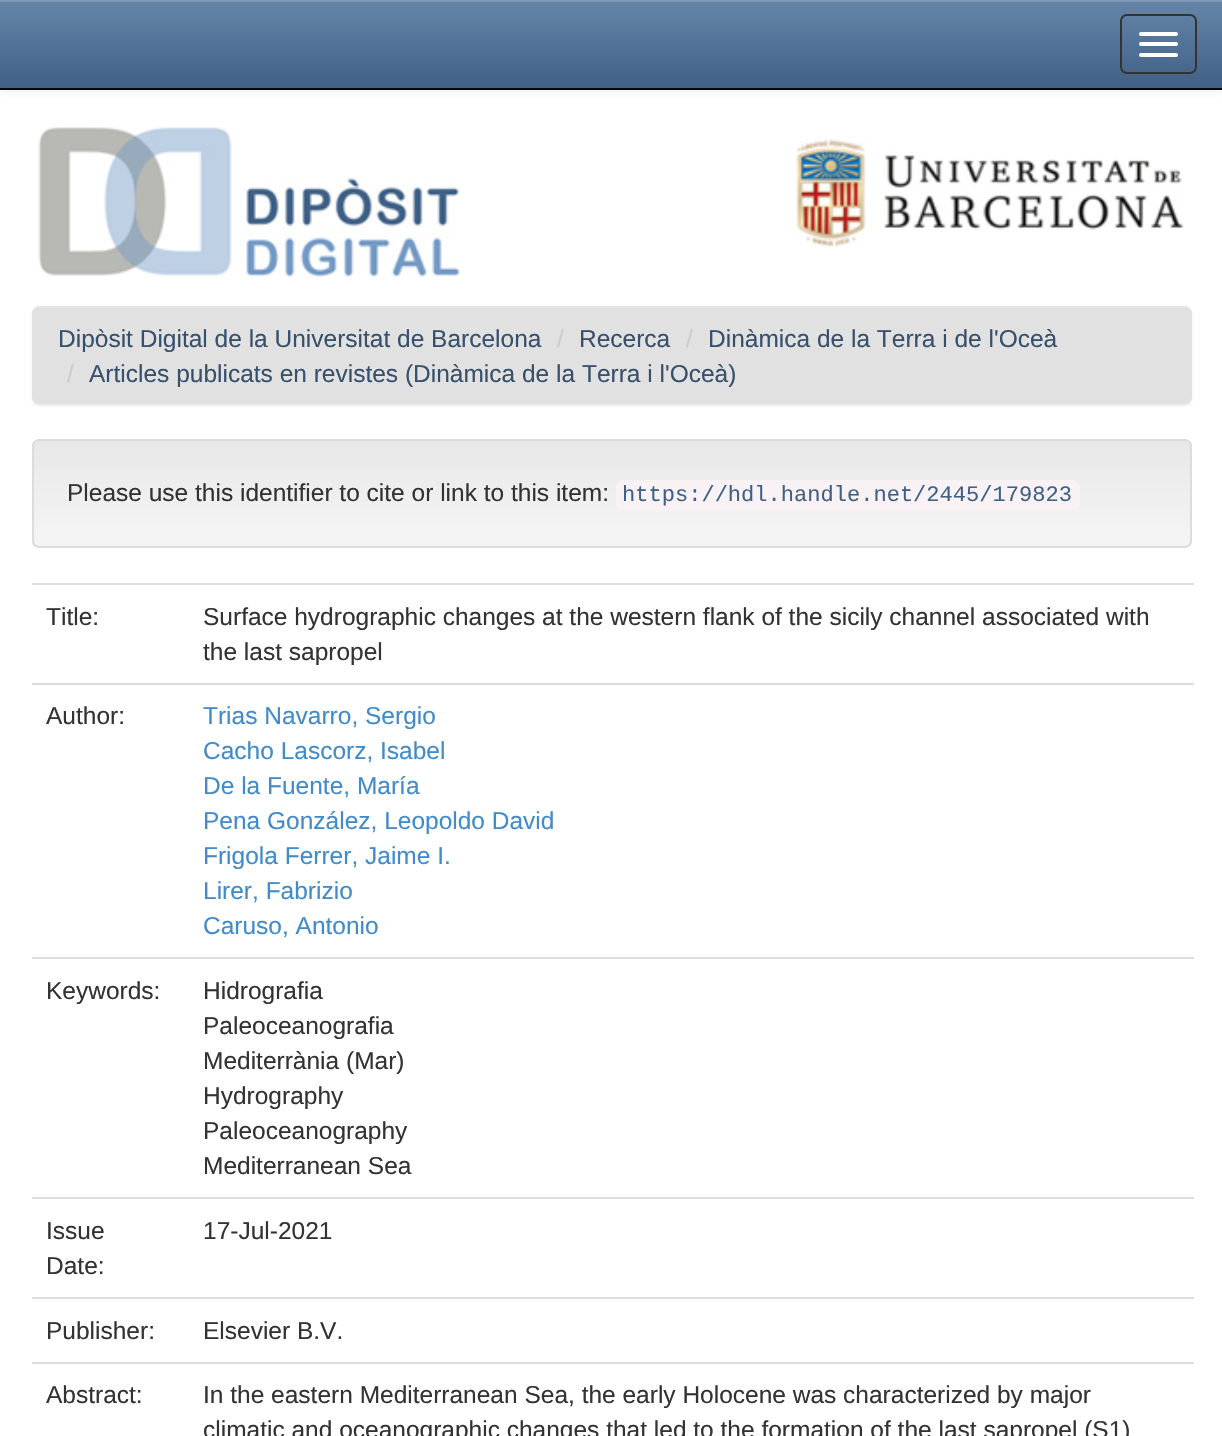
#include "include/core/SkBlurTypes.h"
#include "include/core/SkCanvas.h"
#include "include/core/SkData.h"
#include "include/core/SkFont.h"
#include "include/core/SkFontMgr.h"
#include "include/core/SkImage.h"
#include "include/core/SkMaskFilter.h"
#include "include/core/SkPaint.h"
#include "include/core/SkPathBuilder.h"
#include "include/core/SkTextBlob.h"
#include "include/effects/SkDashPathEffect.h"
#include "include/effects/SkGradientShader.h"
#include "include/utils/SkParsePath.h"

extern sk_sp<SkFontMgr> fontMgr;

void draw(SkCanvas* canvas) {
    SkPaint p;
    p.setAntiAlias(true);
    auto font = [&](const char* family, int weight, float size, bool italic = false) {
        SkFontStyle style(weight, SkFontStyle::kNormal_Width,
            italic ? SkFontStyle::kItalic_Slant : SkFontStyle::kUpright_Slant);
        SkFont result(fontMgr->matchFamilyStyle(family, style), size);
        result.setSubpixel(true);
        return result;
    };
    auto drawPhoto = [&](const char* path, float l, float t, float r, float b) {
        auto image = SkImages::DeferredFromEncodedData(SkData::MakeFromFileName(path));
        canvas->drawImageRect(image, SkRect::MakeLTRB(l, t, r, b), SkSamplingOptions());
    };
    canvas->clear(0xFFFFFFFF);
    p.setColor(0x12000000);
    p.setMaskFilter(SkMaskFilter::MakeBlur(kNormal_SkBlurStyle, 4.5f));
    canvas->drawRect(SkRect::MakeLTRB(0, 2, 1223, 91), p);
    p.setMaskFilter(nullptr);
    {
        const SkColor colors[] = {0xFF6685A9, 0xFF406086};
        const float stops[] = {0, 1};
        const SkPoint ends[] = {{612, 0}, {612, 88}};
        p.setShader(SkGradientShader::MakeLinear(ends, colors, stops, 2, SkTileMode::kClamp));
        p.setAlpha(255);
    }
    canvas->drawRect(SkRect::MakeLTRB(0, 2, 1222, 88), p);
    p.setShader(nullptr);
    p.setColor(0xFF7D97B5);
    canvas->drawRect(SkRect::MakeLTRB(0, 0, 1222, 2), p);
    p.setColor(0xFF080808);
    canvas->drawRect(SkRect::MakeLTRB(0, 88, 1222, 90), p);
    p.setStyle(SkPaint::kStroke_Style);
    p.setStrokeWidth(2);
    p.setColor(0xFF333333);
    canvas->drawRoundRect(SkRect::MakeLTRB(1121, 15, 1196, 73), 6, 6, p);
    p.setStyle(SkPaint::kFill_Style);
    p.setColor(0xFFFFFFFF);
    canvas->drawRoundRect(SkRect::MakeLTRB(1139, 32, 1178, 36), 2, 2, p);
    canvas->drawRoundRect(SkRect::MakeLTRB(1139, 42, 1178, 46), 2, 2, p);
    canvas->drawRoundRect(SkRect::MakeLTRB(1139, 53, 1178, 57), 2, 2, p);
    drawPhoto("media/1.png", 38, 127, 461, 280);
    drawPhoto("media/2.png", 796, 139, 1184, 247);
    p.setColor(0x12000000);
    p.setMaskFilter(SkMaskFilter::MakeBlur(kNormal_SkBlurStyle, 1));
    canvas->drawRoundRect(SkRect::MakeLTRB(32, 308, 1192, 406), 7, 7, p);
    p.setMaskFilter(nullptr);
    p.setColor(0xFFE1E1E1);
    canvas->drawRoundRect(SkRect::MakeLTRB(32, 306, 1192, 404), 7, 7, p);
    p.setColor(0x26FFFFFF);
    canvas->drawPath(SkPathBuilder().moveTo(38, 308).lineTo(1185, 308).cubicTo(1189, 308, 1192, 311, 1192, 315).lineTo(1192, 313).cubicTo(1192, 309, 1189, 306, 1185, 306).lineTo(39, 306).cubicTo(35, 306, 32, 309, 32, 313).lineTo(32, 315).cubicTo(32, 311, 35, 308, 38, 308).close().detach(), p);
    auto font1 = font("Liberation Sans", 400, 24.5f);
    p.setColor(0xFF37506C);
    canvas->drawString("Dipòsit Digital de la Universitat de Barcelona", 58, 347, font1, p);
    p.setColor(0xFFCCCCCC);
    canvas->drawString("/", 557, 347, font1, p);
    p.setColor(0xFF37506C);
    canvas->drawString("Recerca", 579, 347, font1, p);
    p.setColor(0xFFCCCCCC);
    canvas->drawString("/", 686, 347, font1, p);
    p.setColor(0xFF37506C);
    canvas->drawString("Dinàmica de la Terra i de l'Oceà", 708, 347, font1, p);
    p.setColor(0xFFCCCCCC);
    canvas->drawString("/", 67, 382, font1, p);
    p.setColor(0xFF37506C);
    canvas->drawString("Articles publicats en revistes (Dinàmica de la Terra i l'Oceà)", 89, 382, font1, p);
    canvas->save();
    canvas->clipPath(SkPathBuilder().moveTo(39, 439).lineTo(1185, 439).cubicTo(1189, 439, 1192, 442, 1192, 446).lineTo(1192, 541).cubicTo(1192, 545, 1189, 548, 1185, 548).lineTo(39, 548).cubicTo(35, 548, 32, 545, 32, 541).lineTo(32, 446).cubicTo(32, 442, 35, 439, 39, 439).close().detach(), true);
    {
        const SkColor colors[] = {0xFFE8E8E8, 0xFFF5F5F5};
        const float stops[] = {0, 1};
        const SkPoint ends[] = {{612, 441}, {612, 546}};
        p.setShader(SkGradientShader::MakeLinear(ends, colors, stops, 2, SkTileMode::kClamp));
        p.setAlpha(255);
    }
    canvas->drawRect(SkRect::MakeLTRB(32, 441, 1192, 546), p);
    canvas->restore();
    p.setStyle(SkPaint::kStroke_Style);
    p.setShader(nullptr);
    p.setColor(0xFFDCDCDC);
    canvas->drawRoundRect(SkRect::MakeLTRB(33, 440, 1191, 547), 6, 6, p);
    p.setStyle(SkPaint::kFill_Style);
    p.setColor(0xFF333333);
    canvas->drawString("Please use this identifier to cite or link to this item:", 67, 501, font1, p);
    p.setColor(0xFFF9F2F4);
    canvas->drawRoundRect(SkRect::MakeLTRB(616, 480, 1080, 511), 7, 7, p);
    auto font2 = font("Liberation Mono", 400, 22.05f);
    p.setColor(0xFF406086);
    canvas->drawString("https://hdl.handle.net/2445/179823", 622, 501, font2, p);
    p.setColor(0xFF333333);
    canvas->drawString("Title:", 46, 625, font1, p);
    p.setColor(0xFFDDDDDD);
    canvas->drawRect(SkRect::MakeLTRB(32, 583, 1194, 585), p);
    p.setColor(0xFF333333);
    {
        const struct { const char* s; float x, y; } items[] = {
            {"Surface hydrographic changes at the western flank of the sicily channel associated with", 203, 625},
            {"the last sapropel", 203, 660},
            {"Author:", 46, 724},
        };
        for (auto [s, x, y] : items) {
            canvas->drawString(s, x, y, font1, p);
        }
    }
    p.setColor(0xFFDDDDDD);
    canvas->drawRect(SkRect::MakeLTRB(32, 683, 1194, 685), p);
    p.setColor(0xFF428BCA);
    {
        const struct { const char* s; float x, y; } items[] = {
            {"Trias Navarro, Sergio", 203, 724},
            {"Cacho Lascorz, Isabel", 203, 759},
            {"De la Fuente, María", 203, 794},
            {"Pena González, Leopoldo David", 203, 829},
            {"Frigola Ferrer, Jaime I.", 203, 864},
            {"Lirer, Fabrizio", 203, 899},
            {"Caruso, Antonio", 203, 934},
        };
        for (auto [s, x, y] : items) {
            canvas->drawString(s, x, y, font1, p);
        }
    }
    p.setColor(0xFF333333);
    canvas->drawString("Keywords:", 46, 999, font1, p);
    p.setColor(0xFFDDDDDD);
    canvas->drawRect(SkRect::MakeLTRB(32, 957, 1194, 959), p);
    p.setColor(0xFF333333);
    {
        const struct { const char* s; float x, y; } items[] = {
            {"Hidrografia", 203, 999},
            {"Paleoceanografia", 203, 1034},
            {"Mediterrània (Mar)", 203, 1069},
            {"Hydrography", 203, 1104},
            {"Paleoceanography", 203, 1139},
            {"Mediterranean Sea", 203, 1174},
            {"Issue", 46, 1239},
            {"Date:", 46, 1274},
        };
        for (auto [s, x, y] : items) {
            canvas->drawString(s, x, y, font1, p);
        }
    }
    p.setColor(0xFFDDDDDD);
    canvas->drawRect(SkRect::MakeLTRB(32, 1197, 1194, 1199), p);
    p.setColor(0xFF333333);
    canvas->drawString("17-Jul-2021", 203, 1239, font1, p);
    canvas->drawString("Publisher:", 46, 1339, font1, p);
    p.setColor(0xFFDDDDDD);
    canvas->drawRect(SkRect::MakeLTRB(32, 1297, 1194, 1299), p);
    p.setColor(0xFF333333);
    canvas->drawString("Elsevier B.V.", 203, 1339, font1, p);
    canvas->drawString("Abstract:", 46, 1403, font1, p);
    p.setColor(0xFFDDDDDD);
    canvas->drawRect(SkRect::MakeLTRB(32, 1362, 1194, 1364), p);
    p.setColor(0xFF333333);
    canvas->drawString("In the eastern Mediterranean Sea, the early Holocene was characterized by major", 203, 1403, font1, p);
    canvas->drawString("climatic and oceanographic changes that led to the formation of the last sapropel (S1)", 203, 1438, font1, p);
}
